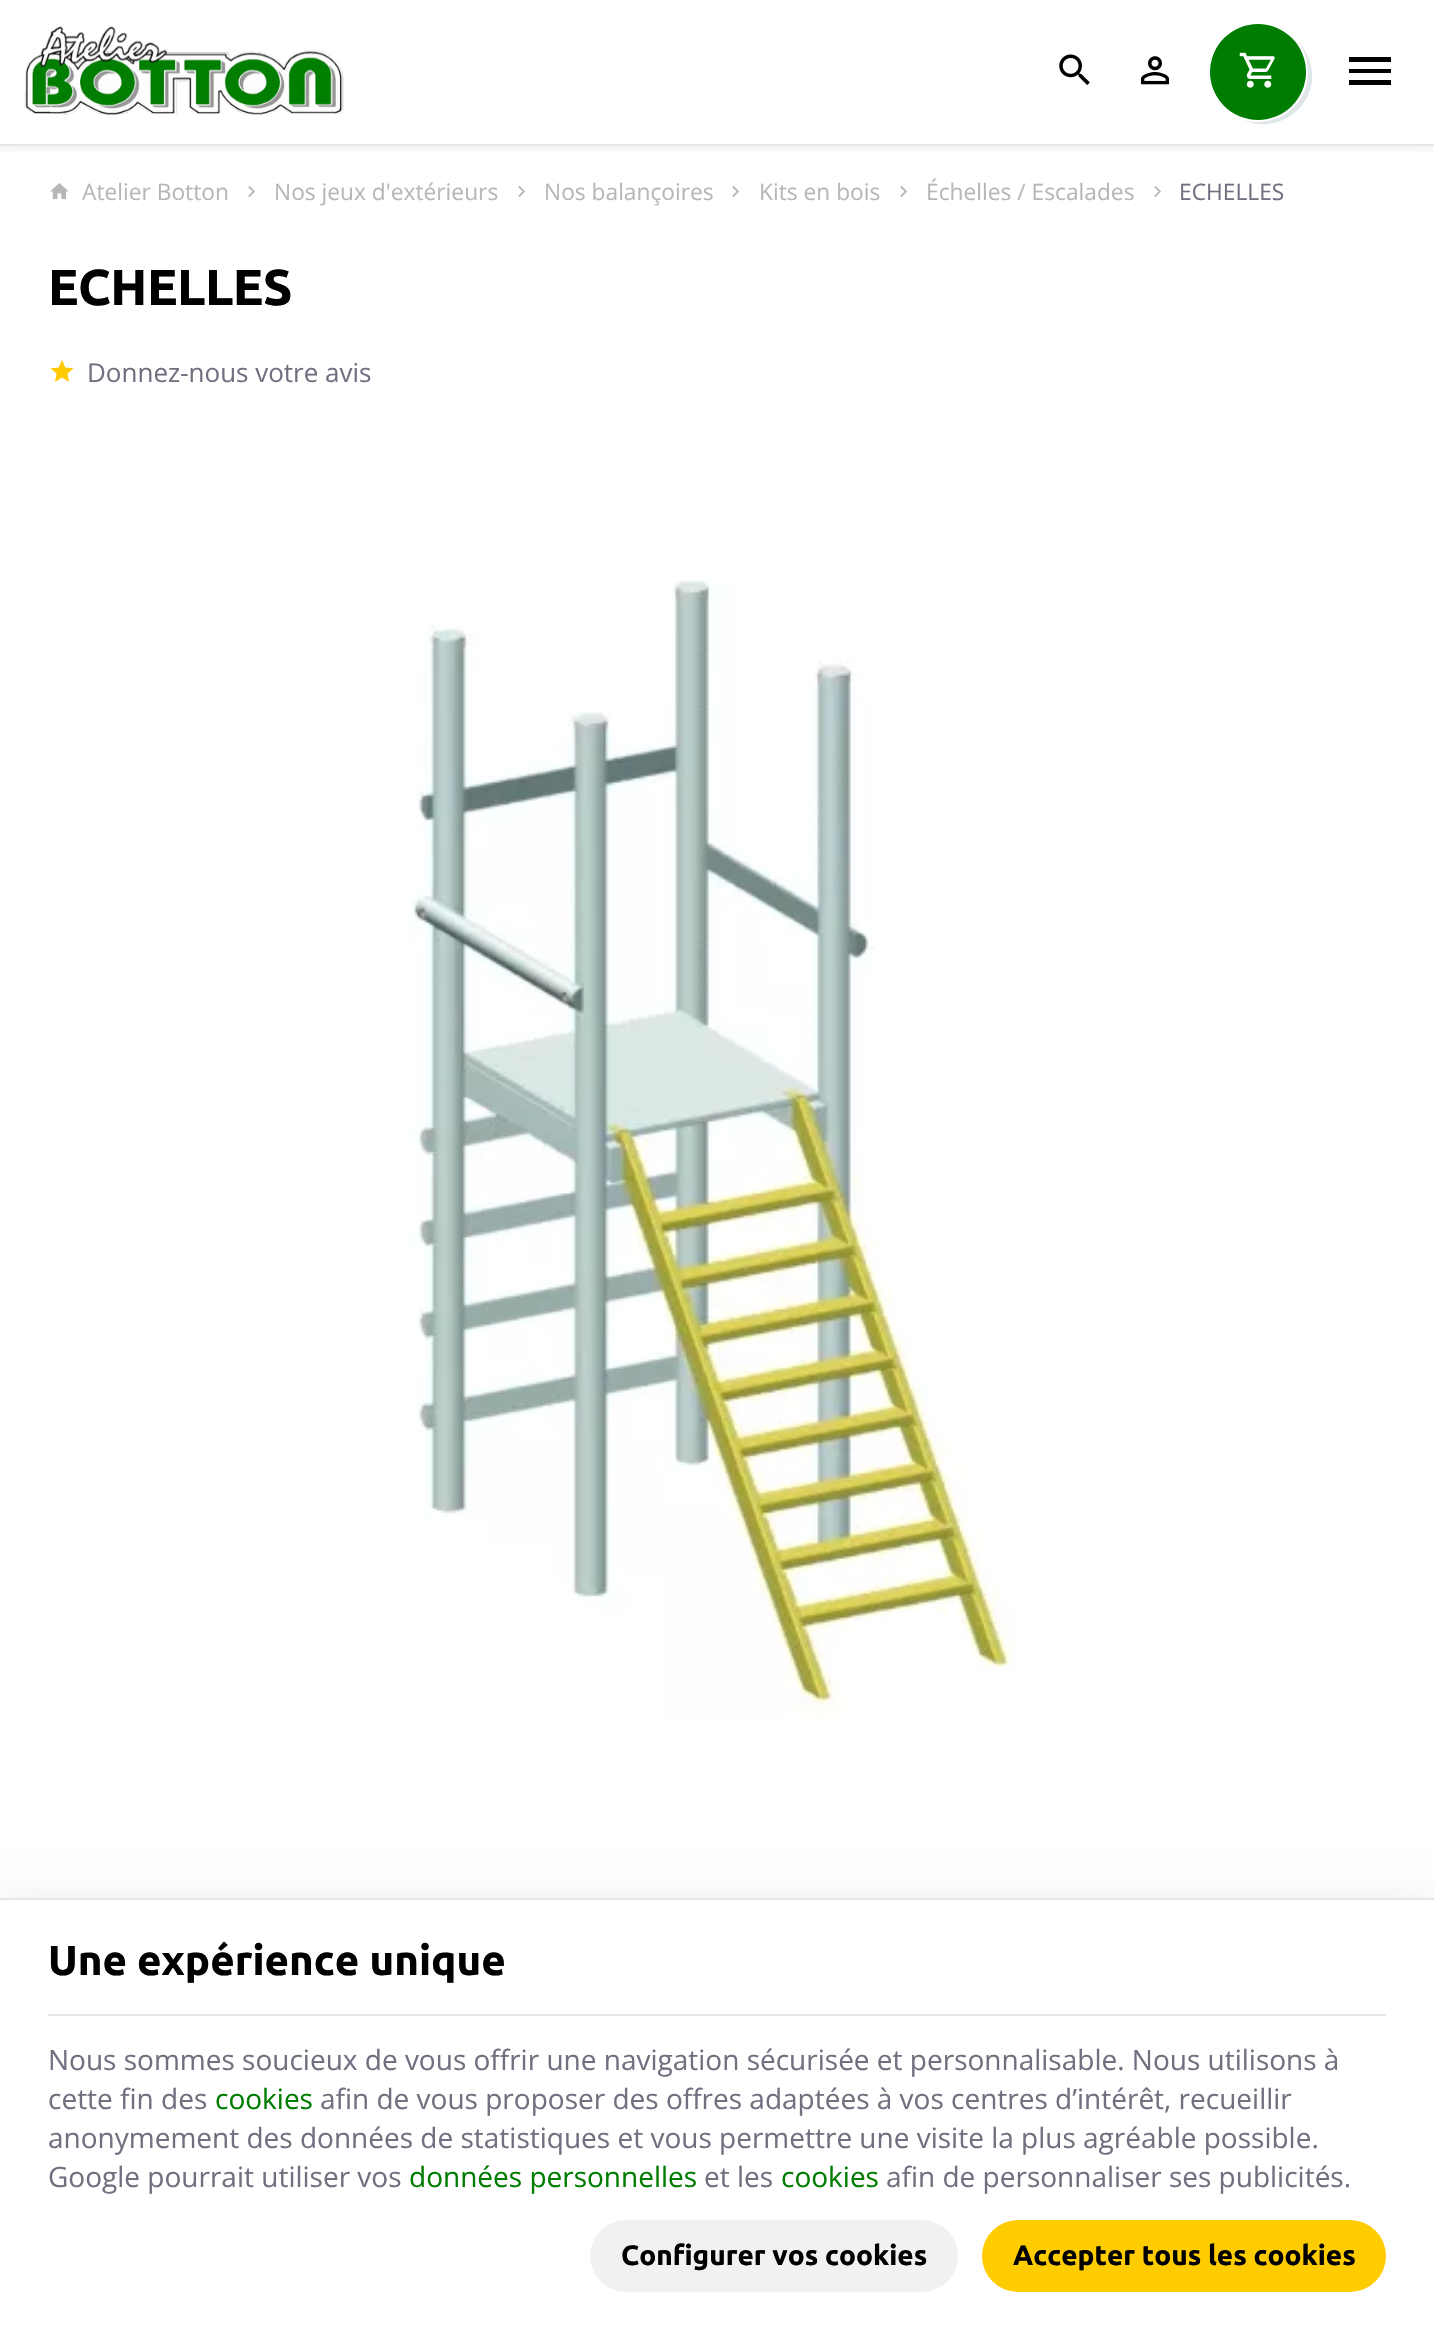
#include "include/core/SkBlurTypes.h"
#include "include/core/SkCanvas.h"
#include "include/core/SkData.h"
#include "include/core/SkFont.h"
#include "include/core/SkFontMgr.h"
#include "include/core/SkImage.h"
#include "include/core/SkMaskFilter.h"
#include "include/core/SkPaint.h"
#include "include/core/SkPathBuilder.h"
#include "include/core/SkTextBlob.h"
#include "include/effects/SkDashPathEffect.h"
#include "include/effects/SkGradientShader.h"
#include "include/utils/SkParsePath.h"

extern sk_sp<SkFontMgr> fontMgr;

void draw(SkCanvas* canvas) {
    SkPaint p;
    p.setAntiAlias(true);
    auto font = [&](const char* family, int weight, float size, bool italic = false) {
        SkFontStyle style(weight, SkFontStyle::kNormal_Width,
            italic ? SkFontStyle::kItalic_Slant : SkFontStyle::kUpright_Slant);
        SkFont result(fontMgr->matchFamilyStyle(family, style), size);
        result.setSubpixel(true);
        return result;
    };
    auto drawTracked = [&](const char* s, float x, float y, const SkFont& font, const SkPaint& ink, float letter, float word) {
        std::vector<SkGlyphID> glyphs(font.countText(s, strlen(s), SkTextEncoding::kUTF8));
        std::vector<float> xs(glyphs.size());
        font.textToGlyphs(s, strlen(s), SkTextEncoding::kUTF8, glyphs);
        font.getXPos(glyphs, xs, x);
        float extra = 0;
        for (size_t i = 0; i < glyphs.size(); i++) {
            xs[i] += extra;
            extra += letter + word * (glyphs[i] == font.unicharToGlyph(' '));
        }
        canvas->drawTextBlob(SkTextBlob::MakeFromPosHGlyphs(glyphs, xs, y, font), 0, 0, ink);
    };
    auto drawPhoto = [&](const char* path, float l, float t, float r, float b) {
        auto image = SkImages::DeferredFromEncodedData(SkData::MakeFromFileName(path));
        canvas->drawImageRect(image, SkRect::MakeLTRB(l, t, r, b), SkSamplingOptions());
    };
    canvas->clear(0xFFFFFFFF);
    canvas->save();
    canvas->clipRect(SkRect::MakeLTRB(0, 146, 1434, 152));
    p.setColor(0x1F000000);
    p.setMaskFilter(SkMaskFilter::MakeBlur(kNormal_SkBlurStyle, 8));
    canvas->drawRect(SkRect::MakeLTRB(0, 0, 1434, 144), p);
    p.setMaskFilter(nullptr);
    canvas->restore();
    p.setColor(0xFFE5E5E5);
    canvas->drawRect(SkRect::MakeLTRB(0, 144, 1434, 146), p);
    drawPhoto("media/1.png", 24, 26, 344, 115);
    drawPhoto("media/2.png", 1059, 54, 1090, 85);
    drawPhoto("media/3.png", 1140, 56, 1170, 85);
    p.setColor(0xFFDFE6E9);
    canvas->drawPath(SkPathBuilder().moveTo(1234, 114).cubicTo(1273, 144, 1328, 103, 1308, 57).cubicTo(1304, 47, 1297, 39, 1288, 34).cubicTo(1307, 49, 1312, 78, 1298, 99).cubicTo(1284, 119, 1256, 126, 1234, 114).close().detach(), p);
    p.setStyle(SkPaint::kStroke_Style);
    p.setStrokeWidth(2);
    p.setColor(0xFFFFFFFF);
    canvas->drawCircle(1258, 72, 49, p);
    p.setStyle(SkPaint::kFill_Style);
    p.setColor(0xFF007C00);
    canvas->drawCircle(1258, 72, 48, p);
    drawPhoto("media/4.png", 1239, 52, 1275, 88);
    p.setColor(0xFF000000);
    canvas->drawPath(SkPathBuilder().moveTo(1349, 57).lineTo(1391, 57).lineTo(1391, 62).lineTo(1349, 62).close().moveTo(1349, 69).lineTo(1391, 69).lineTo(1391, 73).lineTo(1349, 73).close().moveTo(1349, 80).lineTo(1391, 80).lineTo(1391, 85).lineTo(1349, 85).close().detach(), p);
    drawPhoto("media/5.png", 50, 183, 69, 200);
    auto font1 = font("Open Sans", 400, 22.75f);
    p.setColor(0xFFB7B7B7);
    canvas->drawString("Atelier Botton", 82, 200, font1, p);
    drawPhoto("media/6.png", 248, 186, 255, 197);
    canvas->drawString("Nos jeux d'extérieurs", 274, 200, font1, p);
    drawPhoto("media/6.png", 518, 186, 525, 197);
    canvas->drawString("Nos balançoires", 544, 200, font1, p);
    drawPhoto("media/6.png", 732, 186, 739, 197);
    canvas->drawString("Kits en bois", 759, 200, font1, p);
    drawPhoto("media/6.png", 900, 186, 907, 197);
    canvas->drawString("Échelles / Escalades", 926, 200, font1, p);
    drawPhoto("media/6.png", 1154, 186, 1161, 197);
    p.setColor(0xFF6F7180);
    canvas->drawString("ECHELLES", 1179, 200, font1, p);
    auto font2 = font("Ubuntu", 700, 50.5f);
    p.setColor(0xFF000000);
    drawTracked("ECHELLES", 48, 305, font2, p, -0.5f, 0);
    drawPhoto("media/7.png", 50, 360, 74, 382);
    auto font3 = font("Open Sans", 400, 26);
    p.setColor(0xFF6F7180);
    canvas->drawString("Donnez-nous votre avis", 87, 382, font3, p);
    drawPhoto("media/8.png", 410, 580, 1015, 1718);
    p.setColor(0x12000000);
    p.setMaskFilter(SkMaskFilter::MakeBlur(kNormal_SkBlurStyle, 17));
    canvas->drawRect(SkRect::MakeLTRB(0, 1898, 1434, 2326), p);
    p.setMaskFilter(nullptr);
    {
        const struct { float l, t, r, b; SkColor color; } items[] = {
            {0, 1900, 1434, 2325, 0xFFFFFFFF},
            {0, 1898, 1434, 1900, 0xFFE5E5E5},
            {48, 2014, 1386, 2016, 0xFFE5E5E5},
        };
        for (auto [l, t, r, b, color] : items) {
            p.setColor(color);
            canvas->drawRect(SkRect::MakeLTRB(l, t, r, b), p);
        }
    }
    auto font4 = font("Ubuntu", 700, 42);
    p.setColor(0xFF000000);
    canvas->drawString("Une expérience unique", 48, 1975, font4, p);
    auto font5 = font("Open Sans", 400, 28);
    p.setColor(0xFF6F7180);
    canvas->drawString("Nous sommes soucieux de vous offrir une navigation sécurisée et personnalisable. Nous utilisons à", 48, 2070, font5, p);
    canvas->drawString("cette fin des", 48, 2109, font5, p);
    p.setColor(0xFF007C00);
    canvas->drawString("cookies", 215, 2109, font5, p);
    p.setColor(0xFF6F7180);
    {
        const struct { const char* s; float x, y; } items[] = {
            {"afin de vous proposer des offres adaptées à vos centres d’intérêt, recueillir", 320, 2109},
            {"anonymement des données de statistiques et vous permettre une visite la plus agréable possible.", 48, 2148},
            {"Google pourrait utiliser vos", 48, 2187},
        };
        for (auto [s, x, y] : items) {
            canvas->drawString(s, x, y, font5, p);
        }
    }
    p.setColor(0xFF007C00);
    canvas->drawString("données personnelles", 409, 2187, font5, p);
    p.setColor(0xFF6F7180);
    canvas->drawString("et les", 704, 2187, font5, p);
    p.setColor(0xFF007C00);
    canvas->drawString("cookies", 781, 2187, font5, p);
    p.setColor(0xFF6F7180);
    canvas->drawString("afin de personnaliser ses publicités.", 886, 2187, font5, p);
    p.setColor(0xFFF1F1F1);
    canvas->drawRoundRect(SkRect::MakeLTRB(590, 2220, 958, 2292), 36, 36, p);
    auto font6 = font("Ubuntu", 700, 28);
    p.setColor(0xFF000000);
    canvas->drawString("Configurer vos cookies", 621, 2265, font6, p);
    p.setColor(0xFFFFCC00);
    canvas->drawRoundRect(SkRect::MakeLTRB(982, 2220, 1386, 2292), 36, 36, p);
    p.setColor(0xFF000000);
    canvas->drawString("Accepter tous les cookies", 1013, 2265, font6, p);
}
